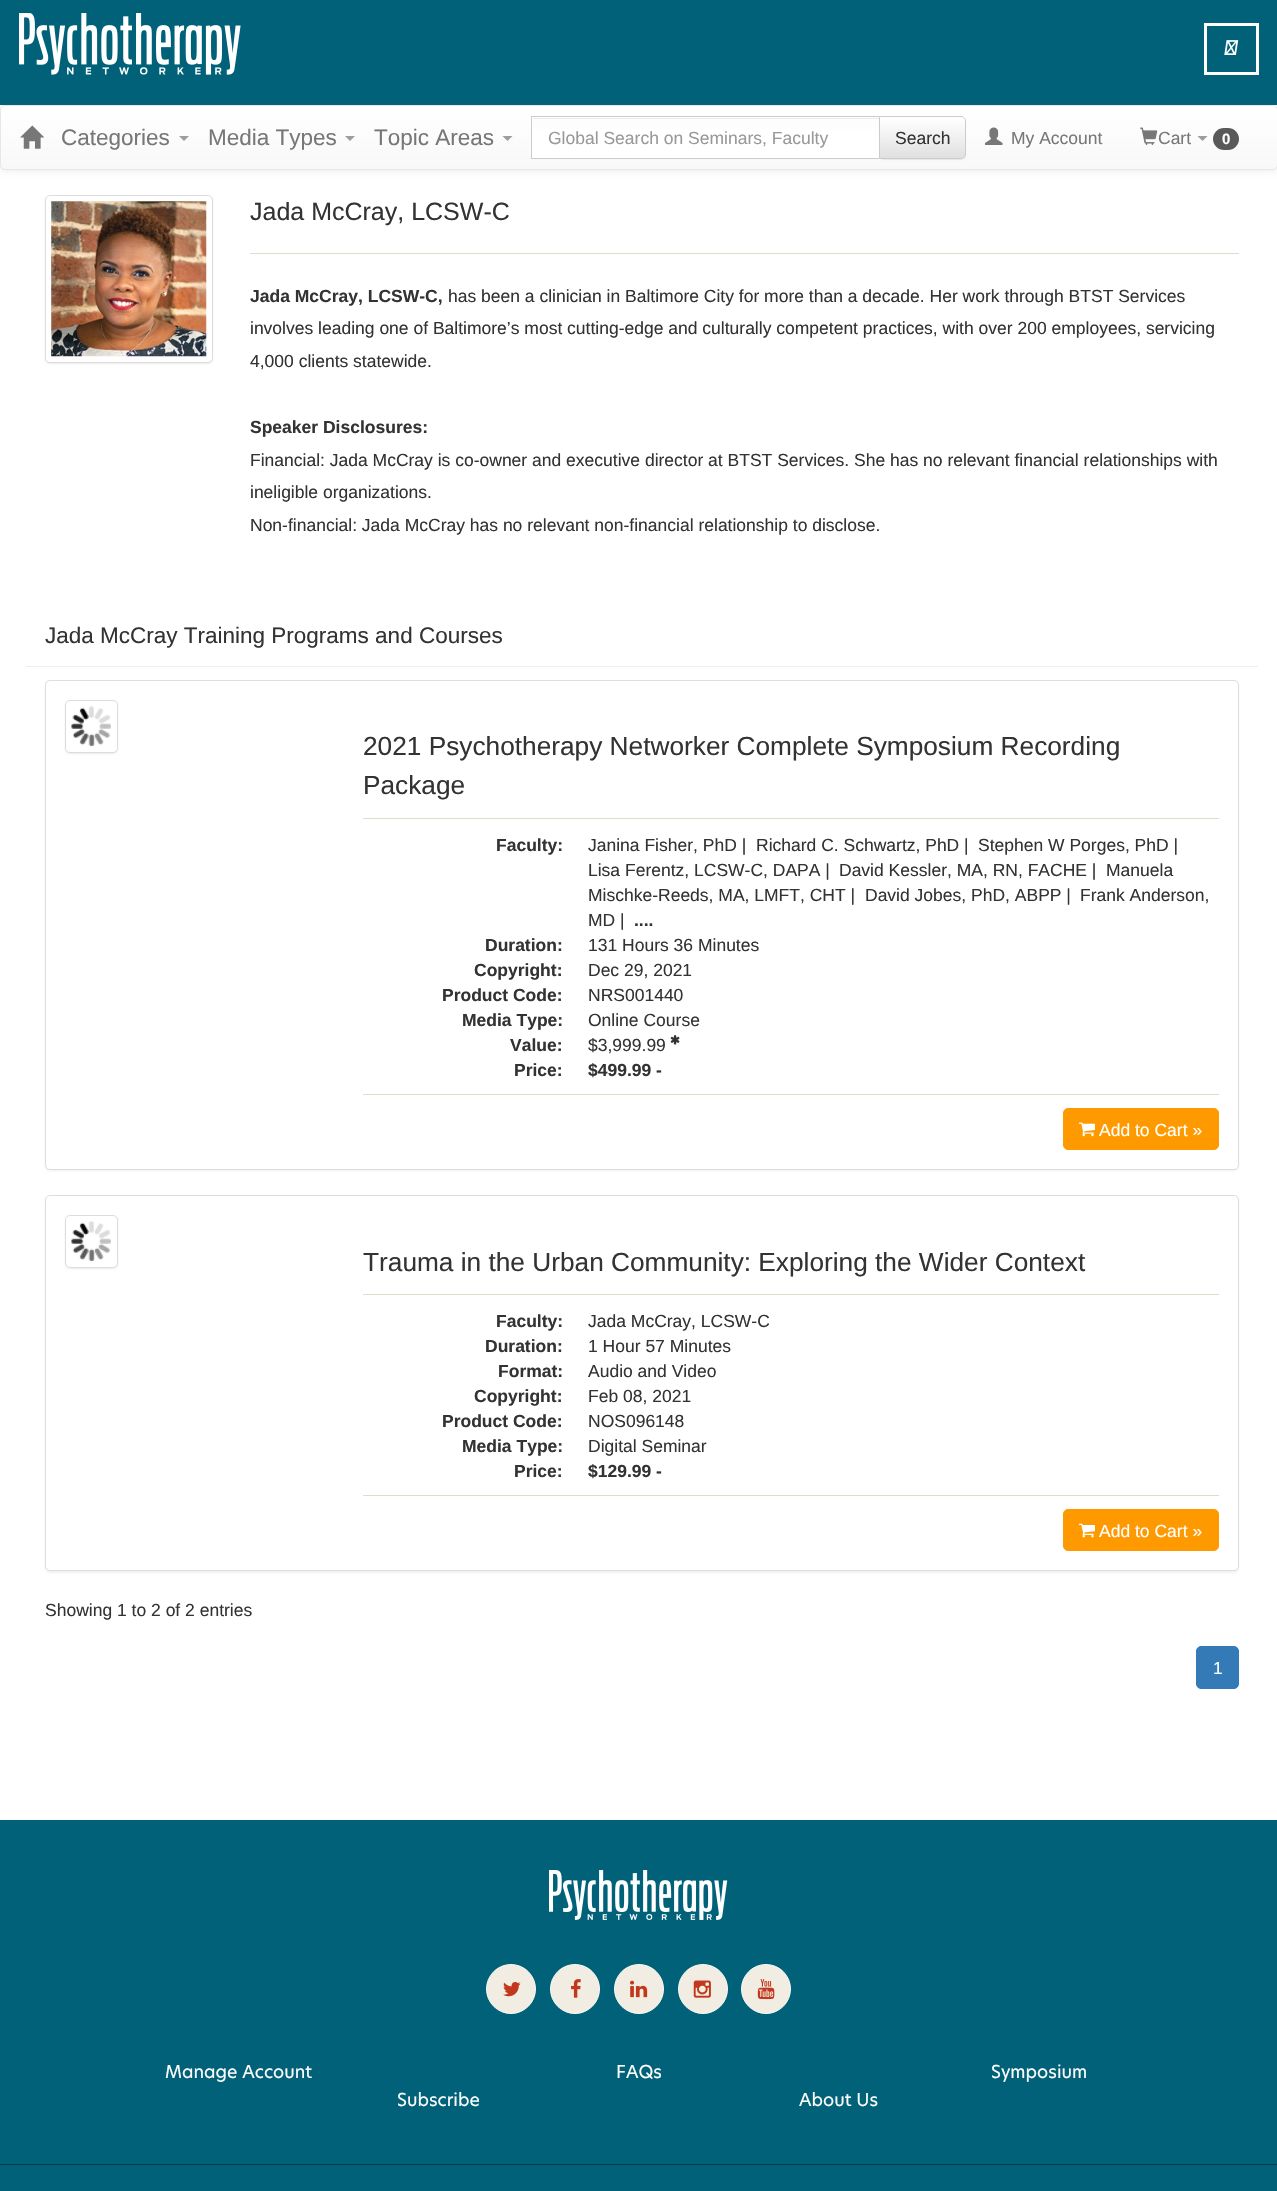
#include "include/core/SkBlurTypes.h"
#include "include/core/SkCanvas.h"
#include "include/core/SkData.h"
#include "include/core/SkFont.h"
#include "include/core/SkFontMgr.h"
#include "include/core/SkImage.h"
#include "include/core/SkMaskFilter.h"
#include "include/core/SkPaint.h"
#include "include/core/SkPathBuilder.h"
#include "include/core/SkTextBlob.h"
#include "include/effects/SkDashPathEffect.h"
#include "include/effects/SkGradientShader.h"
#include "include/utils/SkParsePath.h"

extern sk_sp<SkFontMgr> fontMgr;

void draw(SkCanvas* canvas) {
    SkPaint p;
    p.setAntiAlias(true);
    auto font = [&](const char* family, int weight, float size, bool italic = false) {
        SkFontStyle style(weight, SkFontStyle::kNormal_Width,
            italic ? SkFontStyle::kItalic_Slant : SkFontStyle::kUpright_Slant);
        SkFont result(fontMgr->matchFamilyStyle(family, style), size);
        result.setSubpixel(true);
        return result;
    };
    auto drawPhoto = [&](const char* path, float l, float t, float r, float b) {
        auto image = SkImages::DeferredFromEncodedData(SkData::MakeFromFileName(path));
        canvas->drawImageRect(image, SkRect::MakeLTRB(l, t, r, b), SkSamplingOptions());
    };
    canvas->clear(0xFFFFFFFF);
    p.setColor(0x12000000);
    p.setMaskFilter(SkMaskFilter::MakeBlur(kNormal_SkBlurStyle, 3));
    canvas->drawRoundRect(SkRect::MakeLTRB(0, 106, 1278, 171), 5, 5, p);
    p.setMaskFilter(nullptr);
    p.setColor(0xFF006179);
    canvas->drawRect(SkRect::MakeLTRB(0, 0, 1277, 105), p);
    drawPhoto("media/1.png", 19, 13, 241, 75);
    p.setStyle(SkPaint::kStroke_Style);
    p.setStrokeWidth(3);
    p.setColor(0xFFFFFFFF);
    canvas->drawRect(SkRect::MakeLTRB(1205.5f, 24.5f, 1257.5f, 73.5f), p);
    drawPhoto("media/2.png", 1224, 40, 1239, 55);
    canvas->save();
    canvas->clipPath(SkPathBuilder().moveTo(5, 105).lineTo(1273, 105).cubicTo(1276, 105, 1278, 107, 1278, 110).lineTo(1278, 165).cubicTo(1278, 168, 1276, 170, 1273, 170).lineTo(5, 170).cubicTo(2, 170, 0, 168, 0, 165).lineTo(0, 110).cubicTo(0, 107, 2, 105, 5, 105).close().detach(), true);
    p.setStyle(SkPaint::kFill_Style);
    {
        const SkColor colors[] = {0xFFFFFFFF, 0xFFF8F8F8};
        const float stops[] = {0, 1};
        const SkPoint ends[] = {{639, 106}, {639, 169}};
        p.setShader(SkGradientShader::MakeLinear(ends, colors, stops, 2, SkTileMode::kClamp));
        p.setAlpha(255);
    }
    canvas->drawRect(SkRect::MakeLTRB(0, 106, 1277, 169), p);
    canvas->restore();
    p.setStyle(SkPaint::kStroke_Style);
    p.setStrokeWidth(1);
    p.setShader(nullptr);
    p.setColor(0xFFE7E7E7);
    canvas->drawRoundRect(SkRect::MakeLTRB(0.5f, 105.5f, 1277.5f, 169.5f), 4.5f, 4.5f, p);
    drawPhoto("media/3.png", 20, 125, 44, 149);
    auto font1 = font("Liberation Sans", 400, 22.5f);
    p.setStyle(SkPaint::kFill_Style);
    p.setColor(0xFF777777);
    canvas->drawString("Categories", 61, 145, font1, p);
    p.setColor(0xFF9D9D9D);
    canvas->drawPath(SkPathBuilder().moveTo(179, 136).lineTo(189, 136).lineTo(184, 141).close().detach(), p);
    p.setColor(0xFF777777);
    canvas->drawString("Media Types", 208, 145, font1, p);
    p.setColor(0xFF9D9D9D);
    canvas->drawPath(SkPathBuilder().moveTo(345, 136).lineTo(355, 136).lineTo(350, 141).close().detach(), p);
    p.setColor(0xFF777777);
    canvas->drawString("Topic Areas", 374, 145, font1, p);
    p.setColor(0xFF9D9D9D);
    canvas->drawPath(SkPathBuilder().moveTo(502.5f, 136).lineTo(512.5f, 136).lineTo(507.5f, 141).close().detach(), p);
    p.setColor(0xFFFFFFFF);
    canvas->drawRect(SkRect::MakeLTRB(532, 129, 879, 158), p);
    p.setColor(0xFFECECEC);
    canvas->drawRect(SkRect::MakeLTRB(533, 118, 879, 119), p);
    p.setStyle(SkPaint::kStroke_Style);
    p.setColor(0xFFCCCCCC);
    canvas->drawRect(SkRect::MakeLTRB(531.5f, 116.5f, 879.5f, 158.5f), p);
    auto font2 = font("Liberation Sans", 400, 17.5f);
    p.setStyle(SkPaint::kFill_Style);
    p.setColor(0xFF999999);
    canvas->drawString("Global Search on Seminars, Faculty", 548, 144, font2, p);
    p.setColor(0x12000000);
    p.setMaskFilter(SkMaskFilter::MakeBlur(kNormal_SkBlurStyle, 0.5f));
    canvas->drawRoundRect(SkRect::MakeLTRB(879, 118, 966, 160), 5, 5, p);
    p.setMaskFilter(nullptr);
    p.setColor(0xFFFFFFFF);
    canvas->drawPath(SkPathBuilder().moveTo(879, 116).lineTo(961, 116).cubicTo(964, 116, 966, 118, 966, 121).lineTo(966, 154).cubicTo(966, 157, 964, 159, 961, 159).lineTo(879, 159).close().detach(), p);
    canvas->save();
    canvas->clipPath(SkPathBuilder().moveTo(879, 116).lineTo(961, 116).cubicTo(964, 116, 966, 118, 966, 121).lineTo(966, 154).cubicTo(966, 157, 964, 159, 961, 159).lineTo(879, 159).close().detach(), true);
    {
        const SkColor colors[] = {0xFFFFFFFF, 0xFFE0E0E0};
        const float stops[] = {0, 1};
        const SkPoint ends[] = {{923, 118}, {923, 158}};
        p.setShader(SkGradientShader::MakeLinear(ends, colors, stops, 2, SkTileMode::kClamp));
        p.setAlpha(255);
    }
    canvas->drawRect(SkRect::MakeLTRB(880, 118, 966, 158), p);
    canvas->restore();
    p.setStyle(SkPaint::kStroke_Style);
    p.setShader(nullptr);
    p.setColor(0xFFCCCCCC);
    canvas->drawPath(SkPathBuilder().moveTo(879.5f, 116.5f).lineTo(961, 116.5f).cubicTo(963.5f, 116.5f, 965.5f, 118.5f, 965.5f, 121).lineTo(965.5f, 154).cubicTo(965.5f, 156.5f, 963.5f, 158.5f, 961, 158.5f).lineTo(879.5f, 158.5f).close().detach(), p);
    p.setStyle(SkPaint::kFill_Style);
    p.setColor(0xFF333333);
    canvas->drawString("Search", 895, 144, font2, p);
    drawPhoto("media/4.png", 985, 127, 1003, 145);
    p.setColor(0xFF777777);
    canvas->drawString("My Account", 1011, 144, font2, p);
    drawPhoto("media/5.png", 1140, 127, 1158, 145);
    canvas->drawString("Cart", 1158, 144, font2, p);
    p.setColor(0xFF9D9D9D);
    canvas->drawPath(SkPathBuilder().moveTo(1197.5f, 136).lineTo(1207.5f, 136).lineTo(1202.5f, 141).close().detach(), p);
    p.setColor(0xFF595959);
    canvas->drawRoundRect(SkRect::MakeLTRB(1213, 128, 1239, 150), 11, 11, p);
    auto font3 = font("Liberation Sans", 700, 15);
    p.setColor(0xFFFFFFFF);
    canvas->drawString("0", 1222, 144, font3, p);
    p.setColor(0x12000000);
    p.setMaskFilter(SkMaskFilter::MakeBlur(kNormal_SkBlurStyle, 1));
    canvas->drawRoundRect(SkRect::MakeLTRB(45, 196, 213, 364), 5, 5, p);
    p.setMaskFilter(nullptr);
    p.setColor(0xFFFFFFFF);
    canvas->drawRoundRect(SkRect::MakeLTRB(45.5f, 195.5f, 212.5f, 362.5f), 4.5f, 4.5f, p);
    p.setStyle(SkPaint::kStroke_Style);
    p.setColor(0xFFDDDDDD);
    canvas->drawRoundRect(SkRect::MakeLTRB(45.5f, 195.5f, 212.5f, 362.5f), 4.5f, 4.5f, p);
    drawPhoto("media/6.png", 51, 201, 207, 357);
    auto font4 = font("Liberation Sans", 400, 25);
    p.setStyle(SkPaint::kFill_Style);
    p.setColor(0xFF333333);
    canvas->drawString("Jada McCray, LCSW-C", 250, 220, font4, p);
    p.setColor(0xFFE1DBCB);
    canvas->drawRect(SkRect::MakeLTRB(250, 253, 1239, 254), p);
    auto font5 = font("Liberation Sans", 700, 17.5f);
    p.setColor(0xFF333333);
    canvas->drawString("Jada McCray, LCSW-C,", 250, 302, font5, p);
    {
        const struct { const char* s; float x, y; } items[] = {
            {"has been a clinician in Baltimore City for more than a decade. Her work through BTST Services", 448, 302},
            {"involves leading one of Baltimore’s most cutting-edge and culturally competent practices, with over 200 employees, servicing", 250, 334},
            {"4,000 clients statewide.", 250, 367},
        };
        for (auto [s, x, y] : items) {
            canvas->drawString(s, x, y, font2, p);
        }
    }
    canvas->drawString("Speaker Disclosures:", 250, 433, font5, p);
    {
        const struct { const char* s; float x, y; } items[] = {
            {"Financial: Jada McCray is co-owner and executive director at BTST Services. She has no relevant financial relationships with", 250, 466},
            {"ineligible organizations.", 250, 498},
            {"Non-financial: Jada McCray has no relevant non-financial relationship to disclose.", 250, 531},
        };
        for (auto [s, x, y] : items) {
            canvas->drawString(s, x, y, font2, p);
        }
    }
    p.setColor(0xFFEEEEEE);
    canvas->drawRect(SkRect::MakeLTRB(26, 666, 1258, 667), p);
    p.setColor(0xFF333333);
    canvas->drawString("Jada McCray Training Programs and Courses", 45, 643, font1, p);
    p.setColor(0x0D000000);
    p.setMaskFilter(SkMaskFilter::MakeBlur(kNormal_SkBlurStyle, 1));
    canvas->drawRoundRect(SkRect::MakeLTRB(45, 681, 1239, 1171), 5, 5, p);
    p.setMaskFilter(nullptr);
    p.setColor(0xFFFFFFFF);
    canvas->drawRoundRect(SkRect::MakeLTRB(45.5f, 680.5f, 1238.5f, 1169.5f), 4.5f, 4.5f, p);
    p.setStyle(SkPaint::kStroke_Style);
    p.setColor(0xFFDDDDDD);
    canvas->drawRoundRect(SkRect::MakeLTRB(45.5f, 680.5f, 1238.5f, 1169.5f), 4.5f, 4.5f, p);
    p.setStyle(SkPaint::kFill_Style);
    p.setColor(0x12000000);
    p.setMaskFilter(SkMaskFilter::MakeBlur(kNormal_SkBlurStyle, 1));
    canvas->drawRoundRect(SkRect::MakeLTRB(65, 701, 118, 754), 5, 5, p);
    p.setMaskFilter(nullptr);
    p.setColor(0xFFFFFFFF);
    canvas->drawRoundRect(SkRect::MakeLTRB(65.5f, 700.5f, 117.5f, 752.5f), 4.5f, 4.5f, p);
    p.setStyle(SkPaint::kStroke_Style);
    p.setColor(0xFFDDDDDD);
    canvas->drawRoundRect(SkRect::MakeLTRB(65.5f, 700.5f, 117.5f, 752.5f), 4.5f, 4.5f, p);
    drawPhoto("media/7.png", 71, 706, 111, 747);
    auto font6 = font("Liberation Sans", 400, 26.25f);
    p.setStyle(SkPaint::kFill_Style);
    p.setColor(0xFF333333);
    canvas->drawString("2021 Psychotherapy Networker Complete Symposium Recording", 363, 755, font6, p);
    canvas->drawString("Package", 363, 794, font6, p);
    p.setColor(0xFFE1DBCB);
    canvas->drawRect(SkRect::MakeLTRB(363, 818, 1219, 819), p);
    p.setColor(0xFF333333);
    canvas->drawString("Faculty:", 496, 851, font5, p);
    {
        const struct { const char* s; float x, y; } items[] = {
            {"Janina Fisher, PhD |", 588, 851},
            {"Richard C. Schwartz, PhD |", 756, 851},
            {"Stephen W Porges, PhD |", 978, 851},
            {"Lisa Ferentz, LCSW-C, DAPA |", 588, 876},
            {"David Kessler, MA, RN, FACHE |", 839, 876},
            {"Manuela", 1106, 876},
            {"Mischke-Reeds, MA, LMFT, CHT |", 588, 901},
            {"David Jobes, PhD, ABPP |", 865, 901},
            {"Frank Anderson,", 1080, 901},
            {"MD |", 588, 926},
        };
        for (auto [s, x, y] : items) {
            canvas->drawString(s, x, y, font2, p);
        }
    }
    canvas->drawString("....", 634, 926, font5, p);
    canvas->drawString("Duration:", 485, 951, font5, p);
    canvas->drawString("131 Hours 36 Minutes", 588, 951, font2, p);
    canvas->drawString("Copyright:", 474, 976, font5, p);
    canvas->drawString("Dec 29, 2021", 588, 976, font2, p);
    canvas->drawString("Product Code:", 442, 1001, font5, p);
    canvas->drawString("NRS001440", 588, 1001, font2, p);
    canvas->drawString("Media Type:", 462, 1026, font5, p);
    canvas->drawString("Online Course", 588, 1026, font2, p);
    canvas->drawString("Value:", 510, 1051, font5, p);
    canvas->drawString("$3,999.99", 588, 1051, font2, p);
    drawPhoto("media/8.png", 670, 1035, 680, 1045);
    canvas->drawString("Price:", 514, 1076, font5, p);
    canvas->drawString("$499.99 -", 588, 1076, font5, p);
    p.setColor(0xFFE1DBCB);
    canvas->drawRect(SkRect::MakeLTRB(363, 1094, 1219, 1095), p);
    p.setColor(0xFFFF9900);
    canvas->drawRoundRect(SkRect::MakeLTRB(1063.5f, 1108.5f, 1218.5f, 1149.5f), 4.5f, 4.5f, p);
    p.setStyle(SkPaint::kStroke_Style);
    canvas->drawRoundRect(SkRect::MakeLTRB(1063.5f, 1108.5f, 1218.5f, 1149.5f), 4.5f, 4.5f, p);
    drawPhoto("media/9.png", 1078, 1122, 1095, 1137);
    p.setStyle(SkPaint::kFill_Style);
    p.setColor(0xFFFFFFFF);
    canvas->drawString("Add to Cart »", 1099, 1136, font2, p);
    p.setColor(0x0D000000);
    p.setMaskFilter(SkMaskFilter::MakeBlur(kNormal_SkBlurStyle, 1));
    canvas->drawRoundRect(SkRect::MakeLTRB(45, 1196, 1239, 1573), 5, 5, p);
    p.setMaskFilter(nullptr);
    p.setColor(0xFFFFFFFF);
    canvas->drawRoundRect(SkRect::MakeLTRB(45.5f, 1195.5f, 1238.5f, 1570.5f), 4.5f, 4.5f, p);
    p.setStyle(SkPaint::kStroke_Style);
    p.setColor(0xFFDDDDDD);
    canvas->drawRoundRect(SkRect::MakeLTRB(45.5f, 1195.5f, 1238.5f, 1570.5f), 4.5f, 4.5f, p);
    p.setStyle(SkPaint::kFill_Style);
    p.setColor(0x12000000);
    p.setMaskFilter(SkMaskFilter::MakeBlur(kNormal_SkBlurStyle, 1));
    canvas->drawRoundRect(SkRect::MakeLTRB(65, 1216, 118, 1269), 5, 5, p);
    p.setMaskFilter(nullptr);
    p.setColor(0xFFFFFFFF);
    canvas->drawRoundRect(SkRect::MakeLTRB(65.5f, 1215.5f, 117.5f, 1267.5f), 4.5f, 4.5f, p);
    p.setStyle(SkPaint::kStroke_Style);
    p.setColor(0xFFDDDDDD);
    canvas->drawRoundRect(SkRect::MakeLTRB(65.5f, 1215.5f, 117.5f, 1267.5f), 4.5f, 4.5f, p);
    drawPhoto("media/7.png", 71, 1221, 111, 1262);
    p.setStyle(SkPaint::kFill_Style);
    p.setColor(0xFF333333);
    canvas->drawString("Trauma in the Urban Community: Exploring the Wider Context", 363, 1271, font6, p);
    p.setColor(0xFFE1DBCB);
    canvas->drawRect(SkRect::MakeLTRB(363, 1294, 1219, 1295), p);
    p.setColor(0xFF333333);
    canvas->drawString("Faculty:", 496, 1327, font5, p);
    canvas->drawString("Jada McCray, LCSW-C", 588, 1327, font2, p);
    canvas->drawString("Duration:", 485, 1352, font5, p);
    canvas->drawString("1 Hour 57 Minutes", 588, 1352, font2, p);
    canvas->drawString("Format:", 498, 1377, font5, p);
    canvas->drawString("Audio and Video", 588, 1377, font2, p);
    canvas->drawString("Copyright:", 474, 1402, font5, p);
    canvas->drawString("Feb 08, 2021", 588, 1402, font2, p);
    canvas->drawString("Product Code:", 442, 1427, font5, p);
    canvas->drawString("NOS096148", 588, 1427, font2, p);
    canvas->drawString("Media Type:", 462, 1452, font5, p);
    canvas->drawString("Digital Seminar", 588, 1452, font2, p);
    canvas->drawString("Price:", 514, 1477, font5, p);
    canvas->drawString("$129.99 -", 588, 1477, font5, p);
    p.setColor(0xFFE1DBCB);
    canvas->drawRect(SkRect::MakeLTRB(363, 1495, 1219, 1496), p);
    p.setColor(0xFFFF9900);
    canvas->drawRoundRect(SkRect::MakeLTRB(1063.5f, 1509.5f, 1218.5f, 1550.5f), 4.5f, 4.5f, p);
    p.setStyle(SkPaint::kStroke_Style);
    canvas->drawRoundRect(SkRect::MakeLTRB(1063.5f, 1509.5f, 1218.5f, 1550.5f), 4.5f, 4.5f, p);
    drawPhoto("media/10.png", 1078, 1523, 1095, 1538);
    p.setStyle(SkPaint::kFill_Style);
    p.setColor(0xFFFFFFFF);
    canvas->drawString("Add to Cart »", 1099, 1537, font2, p);
    p.setColor(0xFF333333);
    canvas->drawString("Showing 1 to 2 of 2 entries", 45, 1616, font2, p);
    p.setColor(0xFF337AB7);
    canvas->drawRoundRect(SkRect::MakeLTRB(1196.5f, 1646.5f, 1238.5f, 1688.5f), 4.5f, 4.5f, p);
    p.setStyle(SkPaint::kStroke_Style);
    canvas->drawRoundRect(SkRect::MakeLTRB(1196.5f, 1646.5f, 1238.5f, 1688.5f), 4.5f, 4.5f, p);
    p.setStyle(SkPaint::kFill_Style);
    p.setColor(0xFFFFFFFF);
    canvas->drawString("1", 1213, 1674, font2, p);
    p.setColor(0xFF006179);
    canvas->drawRect(SkRect::MakeLTRB(0, 1820, 1277, 2191), p);
    drawPhoto("media/11.png", 549, 1870, 728, 1920);
    p.setColor(0xFFF1EDE2);
    canvas->drawCircle(511, 1989, 24.5f, p);
    p.setStyle(SkPaint::kStroke_Style);
    p.setColor(0xFFFAF8F4);
    canvas->drawCircle(511, 1989, 24.5f, p);
    drawPhoto("media/12.png", 503, 1982, 521, 1997);
    p.setStyle(SkPaint::kFill_Style);
    p.setColor(0xFFF1EDE2);
    canvas->drawCircle(575, 1989, 24.5f, p);
    p.setStyle(SkPaint::kStroke_Style);
    p.setColor(0xFFFAF8F4);
    canvas->drawCircle(575, 1989, 24.5f, p);
    drawPhoto("media/13.png", 571, 1979, 581, 1998);
    p.setStyle(SkPaint::kFill_Style);
    p.setColor(0xFFF1EDE2);
    canvas->drawCircle(639, 1989, 24.5f, p);
    p.setStyle(SkPaint::kStroke_Style);
    p.setColor(0xFFFAF8F4);
    canvas->drawCircle(639, 1989, 24.5f, p);
    drawPhoto("media/14.png", 630, 1980, 648, 1998);
    p.setStyle(SkPaint::kFill_Style);
    p.setColor(0xFFF1EDE2);
    canvas->drawCircle(703, 1989, 24.5f, p);
    p.setStyle(SkPaint::kStroke_Style);
    p.setColor(0xFFFAF8F4);
    canvas->drawCircle(703, 1989, 24.5f, p);
    drawPhoto("media/15.png", 693, 1980, 711, 1998);
    p.setStyle(SkPaint::kFill_Style);
    p.setColor(0xFFF1EDE2);
    canvas->drawCircle(766, 1989, 24.5f, p);
    p.setStyle(SkPaint::kStroke_Style);
    p.setColor(0xFFFAF8F4);
    canvas->drawCircle(766, 1989, 24.5f, p);
    drawPhoto("media/16.png", 757, 1979, 775, 2000);
    auto font7 = font("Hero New", 400, 17.5f);
    p.setStyle(SkPaint::kFill_Style);
    p.setColor(0xFFFFFFFF);
    {
        const struct { const char* s; float x, y; } items[] = {
            {"Manage Account", 165, 2078},
            {"FAQs", 616, 2078},
            {"Symposium", 991, 2078},
            {"Subscribe", 397, 2106},
            {"About Us", 799, 2106},
        };
        for (auto [s, x, y] : items) {
            canvas->drawString(s, x, y, font7, p);
        }
    }
    p.setColor(0xFF013A48);
    canvas->drawRect(SkRect::MakeLTRB(0, 2164, 1277, 2165), p);
}
